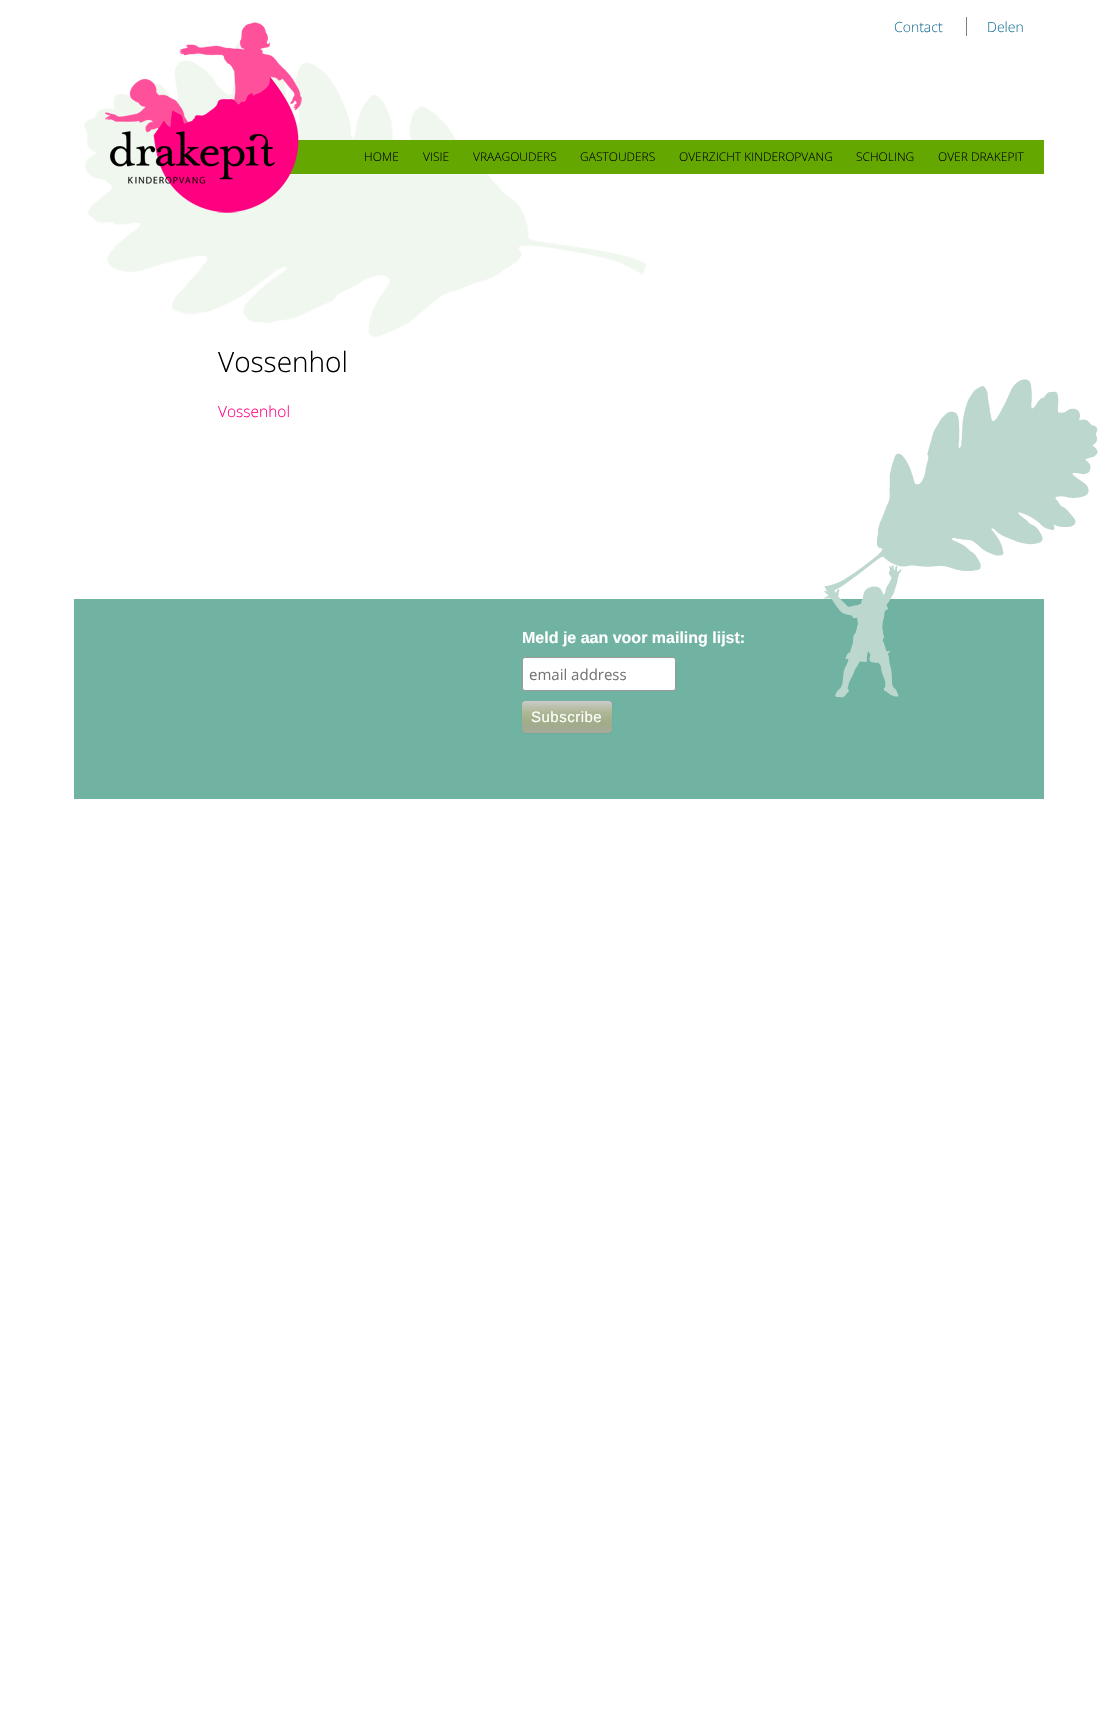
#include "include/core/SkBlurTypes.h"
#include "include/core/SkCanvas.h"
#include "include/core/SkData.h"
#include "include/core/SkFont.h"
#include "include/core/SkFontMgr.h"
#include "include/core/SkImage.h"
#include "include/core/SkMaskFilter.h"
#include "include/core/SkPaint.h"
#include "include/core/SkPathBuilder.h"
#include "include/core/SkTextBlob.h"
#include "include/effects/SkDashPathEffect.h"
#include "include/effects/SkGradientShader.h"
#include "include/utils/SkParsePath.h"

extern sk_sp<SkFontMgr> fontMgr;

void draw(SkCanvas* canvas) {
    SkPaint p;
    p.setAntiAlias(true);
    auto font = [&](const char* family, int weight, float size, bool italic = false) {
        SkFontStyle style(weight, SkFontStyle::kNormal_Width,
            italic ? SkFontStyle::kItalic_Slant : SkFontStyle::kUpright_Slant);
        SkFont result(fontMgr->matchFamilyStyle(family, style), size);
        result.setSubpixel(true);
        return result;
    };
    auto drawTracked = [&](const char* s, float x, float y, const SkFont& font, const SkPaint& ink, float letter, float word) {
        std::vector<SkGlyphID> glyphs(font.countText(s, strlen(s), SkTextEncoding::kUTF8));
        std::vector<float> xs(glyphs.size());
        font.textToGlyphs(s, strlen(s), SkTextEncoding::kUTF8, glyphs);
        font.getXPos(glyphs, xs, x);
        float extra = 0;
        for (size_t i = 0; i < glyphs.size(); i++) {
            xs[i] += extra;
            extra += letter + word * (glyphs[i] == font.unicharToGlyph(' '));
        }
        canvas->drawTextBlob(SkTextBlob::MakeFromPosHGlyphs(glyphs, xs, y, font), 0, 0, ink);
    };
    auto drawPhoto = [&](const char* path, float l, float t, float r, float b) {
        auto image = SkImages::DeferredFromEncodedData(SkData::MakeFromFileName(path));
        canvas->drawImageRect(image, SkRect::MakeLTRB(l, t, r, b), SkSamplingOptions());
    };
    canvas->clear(0xFFFFFFFF);
    drawPhoto("media/1.png", 84, 41, 646, 337);
    p.setColor(0xFF64A700);
    canvas->drawRect(SkRect::MakeLTRB(290, 140, 1044, 174), p);
    drawPhoto("media/2.png", 105, 22, 302, 213);
    auto font1 = font("Open Sans", 300, 14);
    p.setColor(0xFF21759B);
    canvas->drawString("Contact", 894, 32, font1, p);
    p.setColor(0xFF808080);
    canvas->drawRect(SkRect::MakeLTRB(966, 17, 967, 36), p);
    p.setColor(0xFF21759B);
    canvas->drawString("Delen", 987, 32, font1, p);
    auto font2 = font("Open Sans", 300, 12);
    p.setColor(0xFF000000);
    {
        const struct { const char* s; float x, y; } items[] = {
            {"HOME", 364, 161},
            {"VISIE", 423, 161},
            {"VRAAGOUDERS", 473, 161},
            {"GASTOUDERS", 580, 161},
            {"OVERZICHT KINDEROPVANG", 679, 161},
            {"SCHOLING", 856, 161},
            {"OVER DRAKEPIT", 938, 161},
        };
        for (auto [s, x, y] : items) {
            canvas->drawString(s, x, y, font2, p);
        }
    }
    auto font3 = font("Open Sans", 300, 28);
    canvas->drawString("Vossenhol", 218, 372, font3, p);
    auto font4 = font("Open Sans", 300, 15.5f);
    p.setColor(0xFFFF0081);
    canvas->drawString("Vossenhol", 218, 417, font4, p);
    p.setColor(0xFF70B3A2);
    canvas->drawRect(SkRect::MakeLTRB(74, 599, 1044, 799), p);
    auto font5 = font("Liberation Sans", 700, 16);
    p.setColor(0xFFFFFFFF);
    canvas->drawString("Meld je aan voor mailing lijst:", 522, 643, font5, p);
    canvas->drawRoundRect(SkRect::MakeLTRB(522.5f, 657.5f, 675.5f, 690.5f), 2.5f, 2.5f, p);
    p.setStyle(SkPaint::kStroke_Style);
    p.setStrokeWidth(1);
    p.setColor(0xFF999999);
    canvas->drawRoundRect(SkRect::MakeLTRB(522.5f, 657.5f, 675.5f, 690.5f), 2.5f, 2.5f, p);
    auto font6 = font("Open Sans", 400, 15);
    p.setStyle(SkPaint::kFill_Style);
    p.setColor(0xFF757575);
    canvas->drawString("email address", 529, 680, font6, p);
    p.setColor(0x1A404040);
    p.setMaskFilter(SkMaskFilter::MakeBlur(kNormal_SkBlurStyle, 1));
    canvas->drawRoundRect(SkRect::MakeLTRB(522, 702, 612, 734), 4, 4, p);
    p.setMaskFilter(nullptr);
    p.setColor(0xFFAAAAAA);
    canvas->drawRoundRect(SkRect::MakeLTRB(522, 701, 612, 733), 4, 4, p);
    {
        const SkColor colors[] = {0xFFCCCCCC, 0x147CA620};
        const float stops[] = {0, 1};
        const SkPoint ends[] = {{567, 701}, {567, 733}};
        p.setShader(SkGradientShader::MakeLinear(ends, colors, stops, 2, SkTileMode::kClamp));
        p.setAlpha(255);
    }
    canvas->drawRoundRect(SkRect::MakeLTRB(522, 701, 612, 733), 4, 4, p);
    auto font7 = font("Liberation Sans", 400, 15);
    p.setShader(nullptr);
    p.setColor(0xFFFFFFFF);
    drawTracked("Subscribe", 531, 722, font7, p, 0.5f, 0);
    drawPhoto("media/3.png", 824, 379, 1098, 698);
}
